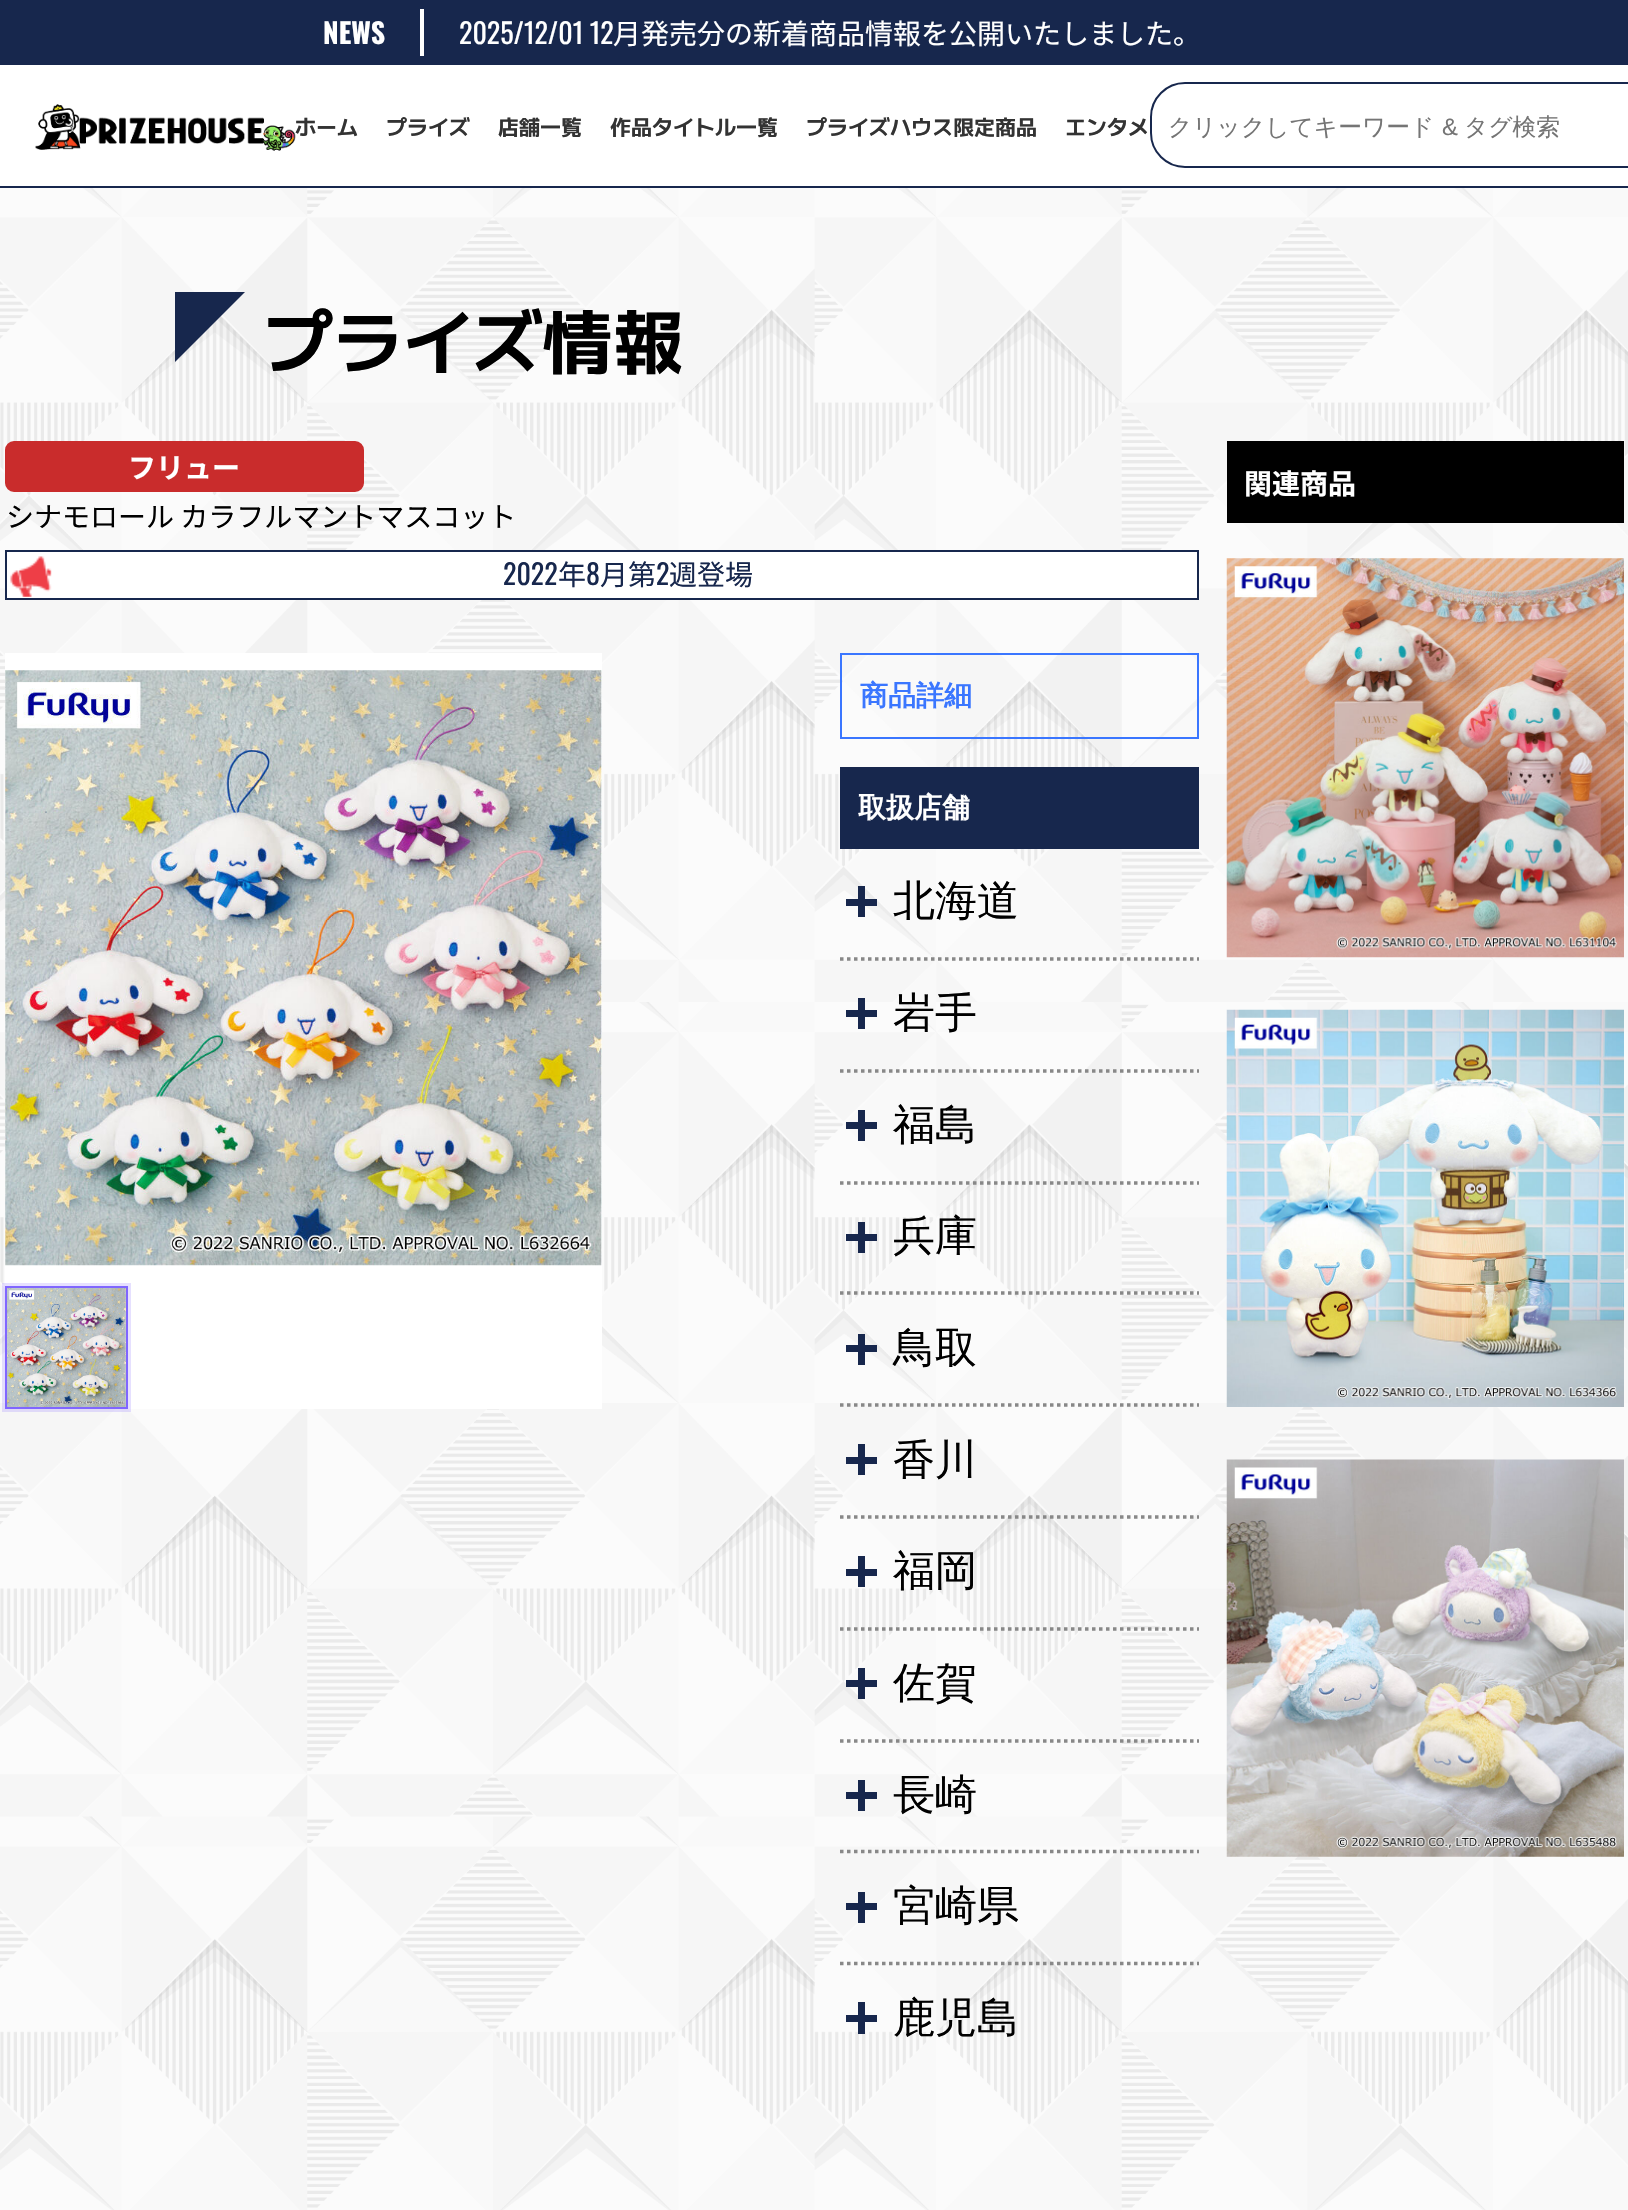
#include "include/core/SkBlurTypes.h"
#include "include/core/SkCanvas.h"
#include "include/core/SkData.h"
#include "include/core/SkFont.h"
#include "include/core/SkFontMgr.h"
#include "include/core/SkImage.h"
#include "include/core/SkMaskFilter.h"
#include "include/core/SkPaint.h"
#include "include/core/SkPathBuilder.h"
#include "include/core/SkTextBlob.h"
#include "include/effects/SkDashPathEffect.h"
#include "include/effects/SkGradientShader.h"
#include "include/utils/SkParsePath.h"

extern sk_sp<SkFontMgr> fontMgr;

void draw(SkCanvas* canvas) {
    SkPaint p;
    p.setAntiAlias(true);
    auto font = [&](const char* family, int weight, float size, bool italic = false) {
        SkFontStyle style(weight, SkFontStyle::kNormal_Width,
            italic ? SkFontStyle::kItalic_Slant : SkFontStyle::kUpright_Slant);
        SkFont result(fontMgr->matchFamilyStyle(family, style), size);
        result.setSubpixel(true);
        return result;
    };
    auto drawPhoto = [&](const char* path, float l, float t, float r, float b) {
        auto image = SkImages::DeferredFromEncodedData(SkData::MakeFromFileName(path));
        canvas->drawImageRect(image, SkRect::MakeLTRB(l, t, r, b), SkSamplingOptions());
    };
    canvas->clear(0xFFFFFFFF);
    p.setColor(0xFF17274D);
    canvas->drawRect(SkRect::MakeLTRB(0, 0, 1628, 65), p);
    p.setColor(0xFFFFFFFF);
    canvas->drawRect(SkRect::MakeLTRB(420, 9, 424, 56), p);
    auto font1 = font("Oswald", 700, 28);
    canvas->drawString("NEWS", 323, 44, font1, p);
    auto font2 = font("Oswald", 400, 28);
    canvas->drawString("2025/12/01 12", 459, 44, font2, p);
    auto font3 = font("Noto Sans JP", 400, 28);
    canvas->drawString("月発売分の新着商品情報を公開いたしました。", 613, 44, font3, p);
    p.setColor(0xFF17274D);
    canvas->drawRect(SkRect::MakeLTRB(0, 186, 1628, 188), p);
    drawPhoto("media/1.png", 35, 104, 296, 151);
    auto font4 = font("M PLUS 1", 700, 21);
    p.setColor(0xFF333333);
    {
        const struct { const char* s; float x, y; } items[] = {
            {"ホーム", 295, 135},
            {"プライズ", 386, 135},
            {"店舗一覧", 498, 135},
            {"作品タイトル一覧", 610, 135},
            {"プライズハウス限定商品", 806, 135},
            {"エンタメ", 1065, 135},
        };
        for (auto [s, x, y] : items) {
            canvas->drawString(s, x, y, font4, p);
        }
    }
    p.setStyle(SkPaint::kStroke_Style);
    p.setStrokeWidth(2);
    p.setColor(0xFF17274D);
    canvas->drawRoundRect(SkRect::MakeLTRB(1151, 83, 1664, 167), 34, 34, p);
    auto font5 = font("WenQuanYi Zen Hei", 500, 23.75f);
    p.setStyle(SkPaint::kFill_Style);
    p.setColor(0xFF757575);
    canvas->drawString("クリックしてキーワード", 1168, 135, font5, p);
    auto font6 = font("Liberation Sans", 400, 23.75f);
    canvas->drawString("&", 1442, 135, font6, p);
    canvas->drawString("タグ検索", 1464, 135, font5, p);
    p.setColor(0xFFFAFAFA);
    canvas->drawRect(SkRect::MakeLTRB(0, 188, 1628, 2210), p);
    drawPhoto("media/2.png", 0, 188, 1628, 2210);
    p.setColor(0xFF17274D);
    canvas->drawPath(SkPathBuilder().moveTo(175, 362).lineTo(175, 292).lineTo(245, 292).close().detach(), p);
    auto font7 = font("M PLUS 1", 700, 70);
    p.setColor(0xFF000000);
    canvas->drawString("プライズ情報", 263, 368, font7, p);
    p.setColor(0xFFC92C2C);
    canvas->drawRoundRect(SkRect::MakeLTRB(6, 442, 363, 491), 8, 8, p);
    p.setStyle(SkPaint::kStroke_Style);
    canvas->drawRoundRect(SkRect::MakeLTRB(6, 442, 363, 491), 8, 8, p);
    auto font8 = font("Noto Sans JP", 700, 28);
    p.setStyle(SkPaint::kFill_Style);
    p.setColor(0xFFFFFFFF);
    canvas->drawString("フリュー", 128, 478, font8, p);
    p.setColor(0xFF000000);
    canvas->drawString("シナモロール カラフルマントマスコット", 6, 527, font3, p);
    p.setColor(0xFFFFFFFF);
    canvas->drawRect(SkRect::MakeLTRB(6, 551, 1198, 599), p);
    p.setStyle(SkPaint::kStroke_Style);
    p.setColor(0xFF17274D);
    canvas->drawRect(SkRect::MakeLTRB(6, 551, 1198, 599), p);
    drawPhoto("media/3.png", 10, 556, 52, 597);
    p.setStyle(SkPaint::kFill_Style);
    canvas->drawString("2022", 503, 585, font2, p);
    canvas->drawString("年", 558, 585, font3, p);
    canvas->drawString("8", 586, 585, font2, p);
    canvas->drawString("月第", 600, 585, font3, p);
    canvas->drawString("2", 656, 585, font2, p);
    canvas->drawString("週登場", 669, 585, font3, p);
    p.setColor(0xFFFFFFFF);
    canvas->drawRect(SkRect::MakeLTRB(5, 653, 602, 1409), p);
    drawPhoto("media/4.png", 5, 670, 602, 1266);
    p.setStyle(SkPaint::kStroke_Style);
    p.setStrokeWidth(4);
    p.setColor(0x338066FF);
    canvas->drawRect(SkRect::MakeLTRB(4, 1285, 129, 1410), p);
    p.setStrokeWidth(2);
    p.setColor(0xFF8066FF);
    canvas->drawRect(SkRect::MakeLTRB(6, 1287, 127, 1408), p);
    drawPhoto("media/5.png", 7, 1288, 126, 1407);
    p.setColor(0xFF3A76FF);
    canvas->drawRect(SkRect::MakeLTRB(841, 654, 1198, 738), p);
    auto font9 = font("WenQuanYi Zen Hei", 700, 28);
    p.setStyle(SkPaint::kFill_Style);
    canvas->drawString("商品詳細", 860, 705, font9, p);
    p.setColor(0xFF17274D);
    canvas->drawRect(SkRect::MakeLTRB(840, 767, 1199, 849), p);
    p.setColor(0xFFFFFFFF);
    canvas->drawString("取扱店舗", 858, 817, font9, p);
    p.setColor(0xFF17274D);
    canvas->drawRect(SkRect::MakeLTRB(858, 886, 865, 917), p);
    auto font10 = font("WenQuanYi Zen Hei", 500, 42);
    p.setColor(0xFF000000);
    canvas->drawString("北海道", 893, 915, font10, p);
    p.setColor(0xFF17274D);
    canvas->drawRect(SkRect::MakeLTRB(846, 899, 877, 906), p);
    p.setStyle(SkPaint::kStroke_Style);
    p.setStrokeWidth(3.5f);
    p.setColor(0xFF888888);
    p.setPathEffect(SkDashPathEffect::Make({{3.5f, 3.5f}}, 0));
    canvas->drawPath(SkPathBuilder().moveTo(840, 959).lineTo(1199, 959).detach(), p);
    p.setPathEffect(nullptr);
    p.setStyle(SkPaint::kFill_Style);
    p.setColor(0xFF17274D);
    canvas->drawRect(SkRect::MakeLTRB(858, 998, 865, 1029), p);
    p.setColor(0xFF000000);
    canvas->drawString("岩手", 893, 1027, font10, p);
    p.setColor(0xFF17274D);
    canvas->drawRect(SkRect::MakeLTRB(846, 1010, 877, 1017), p);
    p.setStyle(SkPaint::kStroke_Style);
    p.setColor(0xFF888888);
    p.setPathEffect(SkDashPathEffect::Make({{3.5f, 3.5f}}, 0));
    canvas->drawPath(SkPathBuilder().moveTo(840, 1071).lineTo(1199, 1071).detach(), p);
    p.setPathEffect(nullptr);
    p.setStyle(SkPaint::kFill_Style);
    p.setColor(0xFF17274D);
    canvas->drawRect(SkRect::MakeLTRB(858, 1110, 865, 1141), p);
    p.setColor(0xFF000000);
    canvas->drawString("福島", 893, 1139, font10, p);
    p.setColor(0xFF17274D);
    canvas->drawRect(SkRect::MakeLTRB(846, 1122, 877, 1129), p);
    p.setStyle(SkPaint::kStroke_Style);
    p.setColor(0xFF888888);
    p.setPathEffect(SkDashPathEffect::Make({{3.5f, 3.5f}}, 0));
    canvas->drawPath(SkPathBuilder().moveTo(840, 1183).lineTo(1199, 1183).detach(), p);
    p.setPathEffect(nullptr);
    p.setStyle(SkPaint::kFill_Style);
    p.setColor(0xFF17274D);
    canvas->drawRect(SkRect::MakeLTRB(858, 1222, 865, 1253), p);
    p.setColor(0xFF000000);
    canvas->drawString("兵庫", 893, 1250, font10, p);
    p.setColor(0xFF17274D);
    canvas->drawRect(SkRect::MakeLTRB(846, 1234, 877, 1241), p);
    p.setStyle(SkPaint::kStroke_Style);
    p.setColor(0xFF888888);
    p.setPathEffect(SkDashPathEffect::Make({{3.5f, 3.5f}}, 0));
    canvas->drawPath(SkPathBuilder().moveTo(840, 1293).lineTo(1199, 1293).detach(), p);
    p.setPathEffect(nullptr);
    p.setStyle(SkPaint::kFill_Style);
    p.setColor(0xFF17274D);
    canvas->drawRect(SkRect::MakeLTRB(858, 1334, 865, 1365), p);
    p.setColor(0xFF000000);
    canvas->drawString("鳥取", 893, 1362, font10, p);
    p.setColor(0xFF17274D);
    canvas->drawRect(SkRect::MakeLTRB(846, 1345, 877, 1352), p);
    p.setStyle(SkPaint::kStroke_Style);
    p.setColor(0xFF888888);
    p.setPathEffect(SkDashPathEffect::Make({{3.5f, 3.5f}}, 0));
    canvas->drawPath(SkPathBuilder().moveTo(840, 1405).lineTo(1199, 1405).detach(), p);
    p.setPathEffect(nullptr);
    p.setStyle(SkPaint::kFill_Style);
    p.setColor(0xFF17274D);
    canvas->drawRect(SkRect::MakeLTRB(858, 1444, 865, 1475), p);
    p.setColor(0xFF000000);
    canvas->drawString("香川", 893, 1474, font10, p);
    p.setColor(0xFF17274D);
    canvas->drawRect(SkRect::MakeLTRB(846, 1457, 877, 1464), p);
    p.setStyle(SkPaint::kStroke_Style);
    p.setColor(0xFF888888);
    p.setPathEffect(SkDashPathEffect::Make({{3.5f, 3.5f}}, 0));
    canvas->drawPath(SkPathBuilder().moveTo(840, 1517).lineTo(1199, 1517).detach(), p);
    p.setPathEffect(nullptr);
    p.setStyle(SkPaint::kFill_Style);
    p.setColor(0xFF17274D);
    canvas->drawRect(SkRect::MakeLTRB(858, 1556, 865, 1587), p);
    p.setColor(0xFF000000);
    canvas->drawString("福岡", 893, 1585, font10, p);
    p.setColor(0xFF17274D);
    canvas->drawRect(SkRect::MakeLTRB(846, 1569, 877, 1576), p);
    p.setStyle(SkPaint::kStroke_Style);
    p.setColor(0xFF888888);
    p.setPathEffect(SkDashPathEffect::Make({{3.5f, 3.5f}}, 0));
    canvas->drawPath(SkPathBuilder().moveTo(840, 1629).lineTo(1199, 1629).detach(), p);
    p.setPathEffect(nullptr);
    p.setStyle(SkPaint::kFill_Style);
    p.setColor(0xFF17274D);
    canvas->drawRect(SkRect::MakeLTRB(858, 1668, 865, 1699), p);
    p.setColor(0xFF000000);
    canvas->drawString("佐賀", 893, 1697, font10, p);
    p.setColor(0xFF17274D);
    canvas->drawRect(SkRect::MakeLTRB(846, 1680, 877, 1687), p);
    p.setStyle(SkPaint::kStroke_Style);
    p.setColor(0xFF888888);
    p.setPathEffect(SkDashPathEffect::Make({{3.5f, 3.5f}}, 0));
    canvas->drawPath(SkPathBuilder().moveTo(840, 1741).lineTo(1199, 1741).detach(), p);
    p.setPathEffect(nullptr);
    p.setStyle(SkPaint::kFill_Style);
    p.setColor(0xFF17274D);
    canvas->drawRect(SkRect::MakeLTRB(858, 1780, 865, 1811), p);
    p.setColor(0xFF000000);
    canvas->drawString("長崎", 893, 1809, font10, p);
    p.setColor(0xFF17274D);
    canvas->drawRect(SkRect::MakeLTRB(846, 1792, 877, 1799), p);
    p.setStyle(SkPaint::kStroke_Style);
    p.setColor(0xFF888888);
    p.setPathEffect(SkDashPathEffect::Make({{3.5f, 3.5f}}, 0));
    canvas->drawPath(SkPathBuilder().moveTo(840, 1851.5f).lineTo(1199, 1851.5f).detach(), p);
    p.setPathEffect(nullptr);
    p.setStyle(SkPaint::kFill_Style);
    p.setColor(0xFF17274D);
    canvas->drawRect(SkRect::MakeLTRB(858, 1892, 865, 1923), p);
    p.setColor(0xFF000000);
    canvas->drawString("宮崎県", 893, 1920, font10, p);
    p.setColor(0xFF17274D);
    canvas->drawRect(SkRect::MakeLTRB(846, 1903, 877, 1910), p);
    p.setStyle(SkPaint::kStroke_Style);
    p.setColor(0xFF888888);
    p.setPathEffect(SkDashPathEffect::Make({{3.5f, 3.5f}}, 0));
    canvas->drawPath(SkPathBuilder().moveTo(840, 1963.5f).lineTo(1199, 1963.5f).detach(), p);
    p.setPathEffect(nullptr);
    p.setStyle(SkPaint::kFill_Style);
    p.setColor(0xFF17274D);
    canvas->drawRect(SkRect::MakeLTRB(858, 2002, 865, 2034), p);
    p.setColor(0xFF000000);
    canvas->drawString("鹿児島", 893, 2032, font10, p);
    p.setColor(0xFF17274D);
    canvas->drawRect(SkRect::MakeLTRB(846, 2015, 877, 2022), p);
    p.setColor(0xFF000000);
    canvas->drawRect(SkRect::MakeLTRB(1227, 441, 1624, 523), p);
    p.setColor(0xFFFFFFFF);
    canvas->drawString("関連商品", 1244, 494, font8, p);
    drawPhoto("media/6.png", 1226, 558, 1624, 958);
    drawPhoto("media/7.png", 1226, 1009, 1624, 1407);
    drawPhoto("media/8.png", 1226, 1459, 1624, 1857);
}
